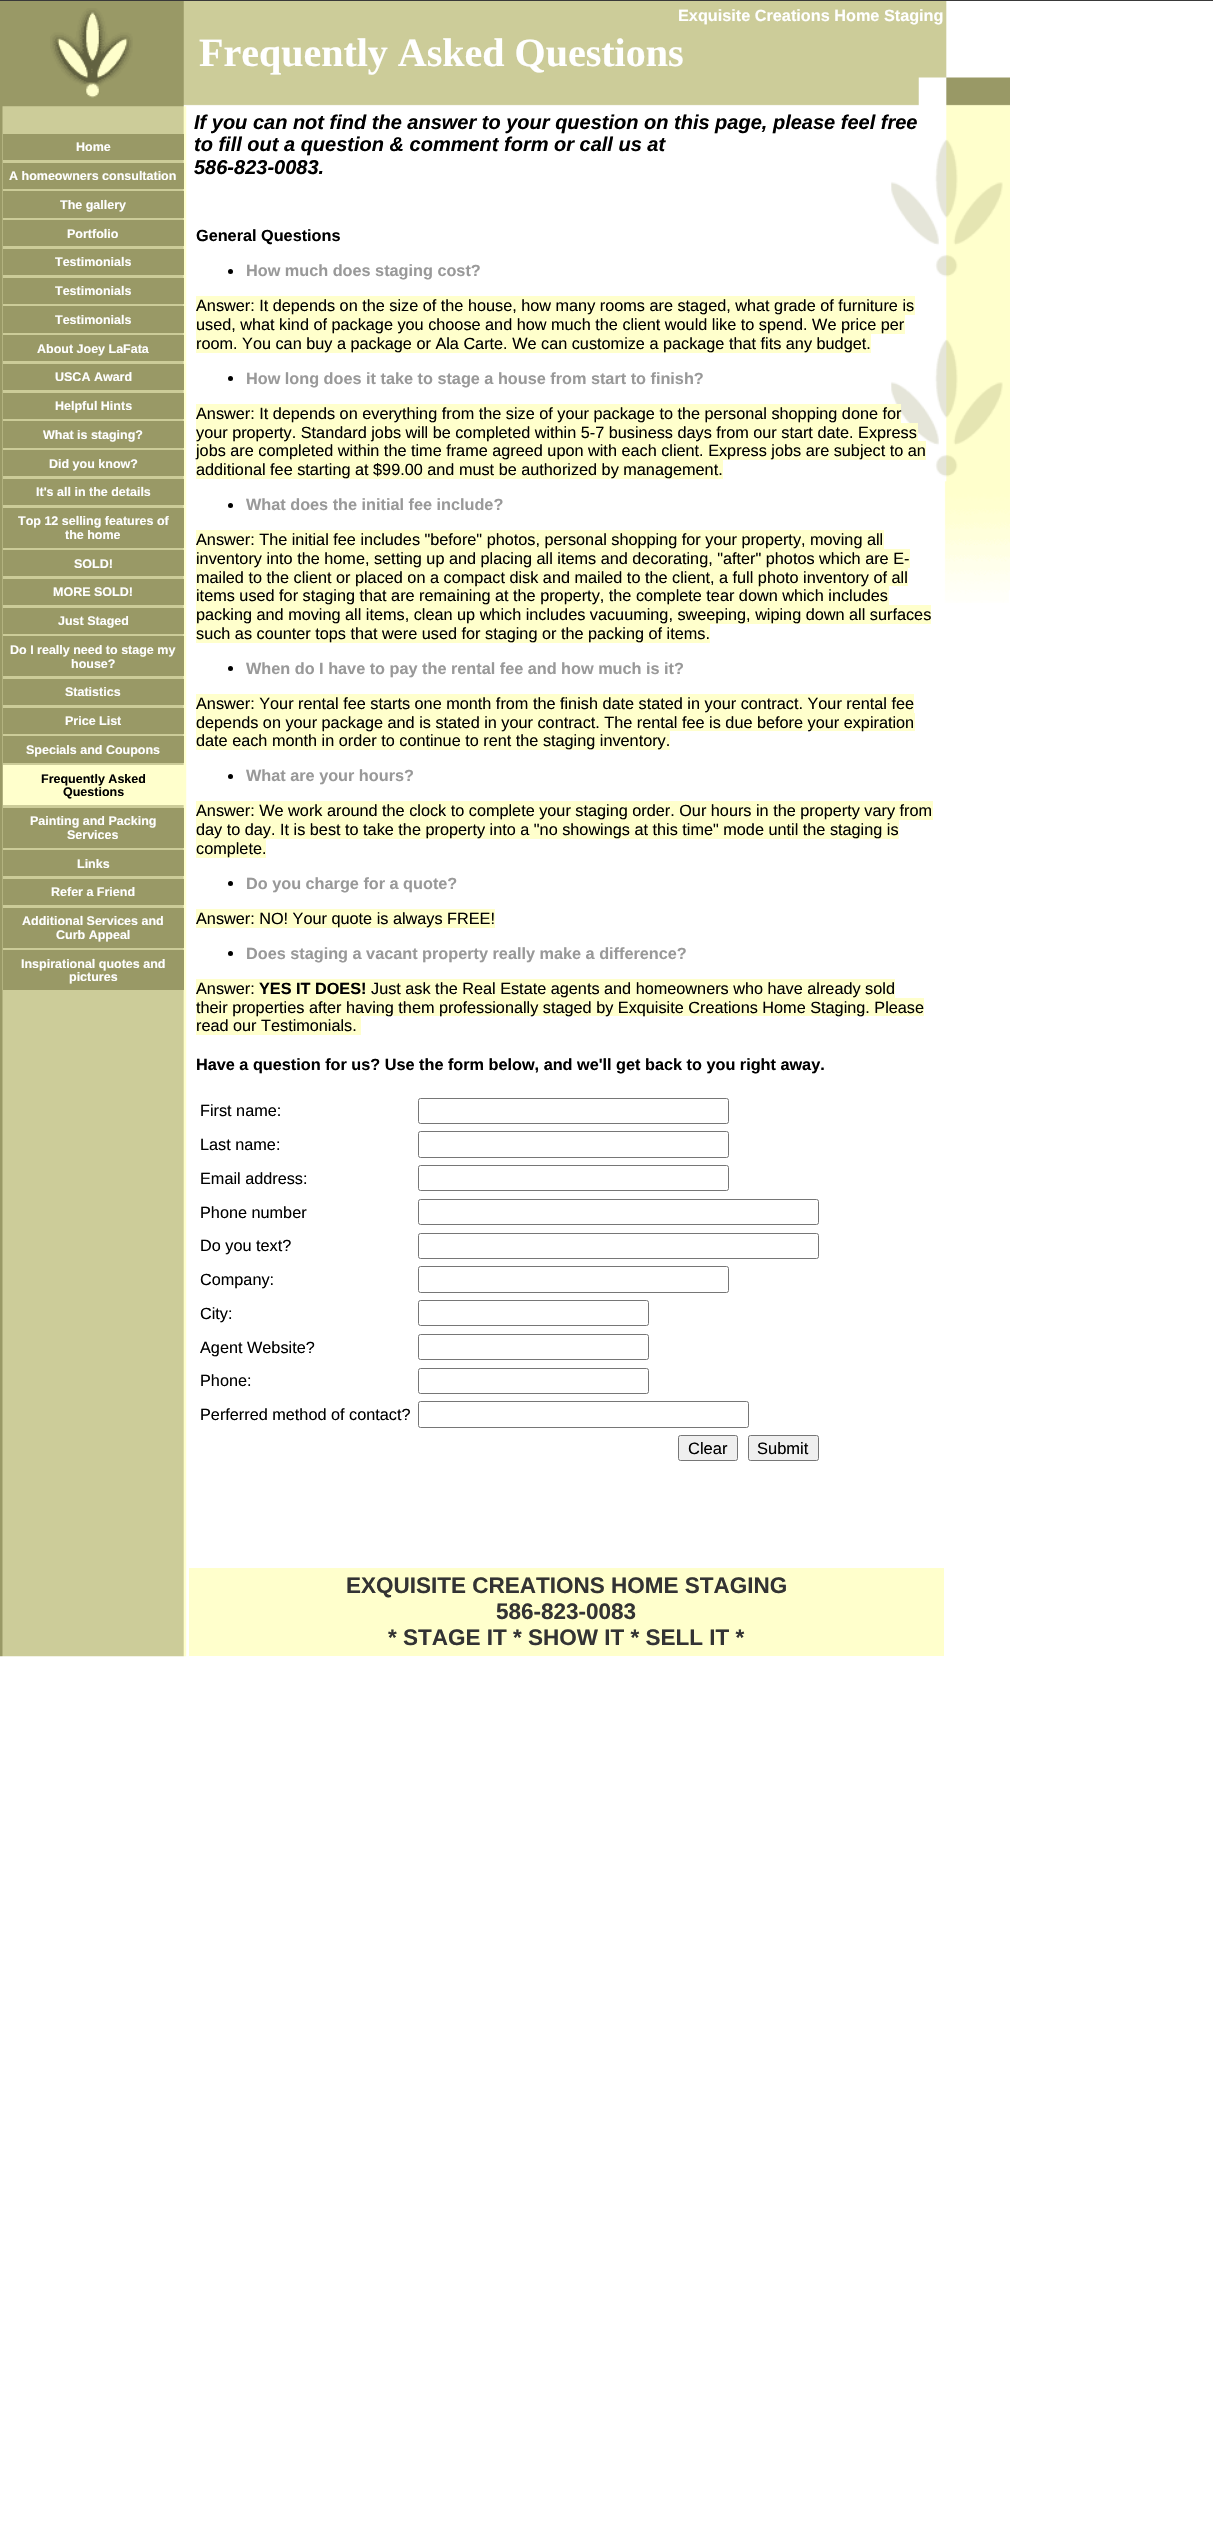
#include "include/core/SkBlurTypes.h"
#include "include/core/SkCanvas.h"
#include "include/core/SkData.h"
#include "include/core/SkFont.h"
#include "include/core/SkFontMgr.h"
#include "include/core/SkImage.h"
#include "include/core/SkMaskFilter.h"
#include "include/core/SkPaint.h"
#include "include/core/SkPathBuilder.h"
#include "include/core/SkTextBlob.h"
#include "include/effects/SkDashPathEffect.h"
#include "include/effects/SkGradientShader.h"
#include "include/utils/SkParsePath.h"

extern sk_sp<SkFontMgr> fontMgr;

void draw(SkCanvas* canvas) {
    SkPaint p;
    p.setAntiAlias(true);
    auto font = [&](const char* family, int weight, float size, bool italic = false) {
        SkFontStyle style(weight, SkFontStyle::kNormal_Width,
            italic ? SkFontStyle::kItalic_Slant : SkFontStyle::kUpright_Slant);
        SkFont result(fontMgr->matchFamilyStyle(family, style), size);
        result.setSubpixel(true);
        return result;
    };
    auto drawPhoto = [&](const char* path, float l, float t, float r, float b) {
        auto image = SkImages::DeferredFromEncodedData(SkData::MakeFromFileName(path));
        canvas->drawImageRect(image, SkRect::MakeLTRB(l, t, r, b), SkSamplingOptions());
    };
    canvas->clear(0xFFFFFFFF);
    drawPhoto("media/1.png", 0, 1, 1010, 603);
    p.setColor(0xFF393939);
    canvas->drawRect(SkRect::MakeLTRB(0, 0, 1213, 1), p);
    drawPhoto("media/2.png", 50, 8, 133, 98);
    auto font1 = font("Liberation Sans", 700, 16.25f);
    p.setColor(0xFFFFFFFF);
    canvas->drawString("Exquisite Creations Home Staging", 678, 21, font1, p);
    auto font2 = font("Liberation Serif", 700, 40);
    canvas->drawString("Frequently Asked Questions", 199, 66, font2, p);
    drawPhoto("media/3.png", 0, 106, 187, 1657);
    p.setColor(0xFF999966);
    canvas->drawRect(SkRect::MakeLTRB(3, 134, 184, 160), p);
    auto font3 = font("Liberation Sans", 700, 12.5f);
    p.setColor(0xFFFFFFFF);
    canvas->drawString("Home", 76, 151, font3, p);
    p.setColor(0xFF999966);
    canvas->drawRect(SkRect::MakeLTRB(3, 163, 184, 189), p);
    p.setColor(0xFFFFFFFF);
    canvas->drawString("A homeowners consultation", 9, 180, font3, p);
    p.setColor(0xFF999966);
    canvas->drawRect(SkRect::MakeLTRB(3, 191, 184, 218), p);
    p.setColor(0xFFFFFFFF);
    canvas->drawString("The gallery", 60, 209, font3, p);
    p.setColor(0xFF999966);
    canvas->drawRect(SkRect::MakeLTRB(3, 220, 184, 246), p);
    p.setColor(0xFFFFFFFF);
    canvas->drawString("Portfolio", 67, 238, font3, p);
    p.setColor(0xFF999966);
    canvas->drawRect(SkRect::MakeLTRB(3, 249, 184, 275), p);
    p.setColor(0xFFFFFFFF);
    canvas->drawString("Testimonials", 55, 266, font3, p);
    p.setColor(0xFF999966);
    canvas->drawRect(SkRect::MakeLTRB(3, 278, 184, 304), p);
    p.setColor(0xFFFFFFFF);
    canvas->drawString("Testimonials", 55, 295, font3, p);
    p.setColor(0xFF999966);
    canvas->drawRect(SkRect::MakeLTRB(3, 306, 184, 333), p);
    p.setColor(0xFFFFFFFF);
    canvas->drawString("Testimonials", 55, 324, font3, p);
    p.setColor(0xFF999966);
    canvas->drawRect(SkRect::MakeLTRB(3, 335, 184, 361), p);
    p.setColor(0xFFFFFFFF);
    canvas->drawString("About Joey LaFata", 37, 353, font3, p);
    p.setColor(0xFF999966);
    canvas->drawRect(SkRect::MakeLTRB(3, 364, 184, 390), p);
    p.setColor(0xFFFFFFFF);
    canvas->drawString("USCA Award", 55, 381, font3, p);
    p.setColor(0xFF999966);
    canvas->drawRect(SkRect::MakeLTRB(3, 393, 184, 419), p);
    p.setColor(0xFFFFFFFF);
    canvas->drawString("Helpful Hints", 55, 410, font3, p);
    p.setColor(0xFF999966);
    canvas->drawRect(SkRect::MakeLTRB(3, 421, 184, 448), p);
    p.setColor(0xFFFFFFFF);
    canvas->drawString("What is staging?", 43, 439, font3, p);
    p.setColor(0xFF999966);
    canvas->drawRect(SkRect::MakeLTRB(3, 450, 184, 476), p);
    p.setColor(0xFFFFFFFF);
    canvas->drawString("Did you know?", 49, 468, font3, p);
    p.setColor(0xFF999966);
    canvas->drawRect(SkRect::MakeLTRB(3, 479, 184, 505), p);
    p.setColor(0xFFFFFFFF);
    canvas->drawString("It's all in the details", 36, 496, font3, p);
    p.setColor(0xFF999966);
    canvas->drawRect(SkRect::MakeLTRB(3, 508, 184, 548), p);
    p.setColor(0xFFFFFFFF);
    canvas->drawString("Top 12 selling features of", 18, 525, font3, p);
    canvas->drawString("the home", 65, 539, font3, p);
    p.setColor(0xFF999966);
    canvas->drawRect(SkRect::MakeLTRB(3, 550, 184, 576), p);
    p.setColor(0xFFFFFFFF);
    canvas->drawString("SOLD!", 74, 568, font3, p);
    p.setColor(0xFF999966);
    canvas->drawRect(SkRect::MakeLTRB(3, 579, 184, 605), p);
    p.setColor(0xFFFFFFFF);
    canvas->drawString("MORE SOLD!", 53, 596, font3, p);
    p.setColor(0xFF999966);
    canvas->drawRect(SkRect::MakeLTRB(3, 608, 184, 634), p);
    p.setColor(0xFFFFFFFF);
    canvas->drawString("Just Staged", 58, 625, font3, p);
    p.setColor(0xFF999966);
    canvas->drawRect(SkRect::MakeLTRB(3, 636, 184, 676), p);
    p.setColor(0xFFFFFFFF);
    canvas->drawString("Do I really need to stage my", 10, 654, font3, p);
    canvas->drawString("house?", 71, 668, font3, p);
    p.setColor(0xFF999966);
    canvas->drawRect(SkRect::MakeLTRB(3, 679, 184, 705), p);
    p.setColor(0xFFFFFFFF);
    canvas->drawString("Statistics", 65, 696, font3, p);
    p.setColor(0xFF999966);
    canvas->drawRect(SkRect::MakeLTRB(3, 708, 184, 734), p);
    p.setColor(0xFFFFFFFF);
    canvas->drawString("Price List", 65, 725, font3, p);
    p.setColor(0xFF999966);
    canvas->drawRect(SkRect::MakeLTRB(3, 736, 184, 763), p);
    p.setColor(0xFFFFFFFF);
    canvas->drawString("Specials and Coupons", 26, 754, font3, p);
    p.setColor(0xFFFFFFCC);
    canvas->drawRect(SkRect::MakeLTRB(3, 765, 184, 805), p);
    p.setColor(0xFF000000);
    canvas->drawString("Frequently Asked", 41, 783, font3, p);
    canvas->drawString("Questions", 63, 796, font3, p);
    p.setColor(0xFF999966);
    canvas->drawRect(SkRect::MakeLTRB(3, 808, 184, 848), p);
    p.setColor(0xFFFFFFFF);
    canvas->drawString("Painting and Packing", 30, 825, font3, p);
    canvas->drawString("Services", 67, 839, font3, p);
    p.setColor(0xFF999966);
    canvas->drawRect(SkRect::MakeLTRB(3, 850, 184, 876), p);
    p.setColor(0xFFFFFFFF);
    canvas->drawString("Links", 77, 868, font3, p);
    p.setColor(0xFF999966);
    canvas->drawRect(SkRect::MakeLTRB(3, 879, 184, 905), p);
    p.setColor(0xFFFFFFFF);
    canvas->drawString("Refer a Friend", 51, 896, font3, p);
    p.setColor(0xFF999966);
    canvas->drawRect(SkRect::MakeLTRB(3, 908, 184, 948), p);
    p.setColor(0xFFFFFFFF);
    canvas->drawString("Additional Services and", 22, 925, font3, p);
    canvas->drawString("Curb Appeal", 56, 939, font3, p);
    p.setColor(0xFF999966);
    canvas->drawRect(SkRect::MakeLTRB(3, 950, 184, 990), p);
    p.setColor(0xFFFFFFFF);
    canvas->drawString("Inspirational quotes and", 21, 968, font3, p);
    canvas->drawString("pictures", 69, 981, font3, p);
    auto font4 = font("Liberation Sans", 700, 20, true);
    p.setColor(0xFF000000);
    {
        const struct { const char* s; float x, y; } items[] = {
            {"If you can not find the answer to your question on this page, please feel free", 194, 129},
            {"to fill out a question & comment form or call us at", 194, 151},
            {"586-823-0083.", 194, 174},
        };
        for (auto [s, x, y] : items) {
            canvas->drawString(s, x, y, font4, p);
        }
    }
    canvas->drawString("General Questions", 196, 241, font1, p);
    canvas->drawCircle(230.5f, 271.5f, 2.5f, p);
    p.setColor(0xFF999999);
    canvas->drawString("How much does staging cost?", 246, 276, font1, p);
    p.setColor(0xFFFFFFCC);
    canvas->drawRect(SkRect::MakeLTRB(196, 296, 915, 315), p);
    auto font5 = font("Liberation Sans", 400, 16.25f);
    p.setColor(0xFF000000);
    canvas->drawString("Answer: It depends on the size of the house, how many rooms are staged, what grade of furniture is", 196, 311, font5, p);
    p.setColor(0xFFFFFFCC);
    canvas->drawRect(SkRect::MakeLTRB(196, 315, 905, 334), p);
    p.setColor(0xFF000000);
    canvas->drawString("used, what kind of package you choose and how much the client would like to spend. We price per", 196, 330, font5, p);
    p.setColor(0xFFFFFFCC);
    canvas->drawRect(SkRect::MakeLTRB(196, 334, 871, 353), p);
    p.setColor(0xFF000000);
    canvas->drawString("room. You can buy a package or Ala Carte. We can customize a package that fits any budget.", 196, 349, font5, p);
    canvas->drawCircle(230.5f, 378.5f, 2.5f, p);
    p.setColor(0xFF999999);
    canvas->drawString("How long does it take to stage a house from start to finish?", 246, 384, font1, p);
    p.setColor(0xFFFFFFCC);
    canvas->drawRect(SkRect::MakeLTRB(196, 404, 901, 423), p);
    p.setColor(0xFF000000);
    canvas->drawString("Answer: It depends on everything from the size of your package to the personal shopping done for", 196, 419, font5, p);
    p.setColor(0xFFFFFFCC);
    canvas->drawRect(SkRect::MakeLTRB(196, 423, 918, 441), p);
    canvas->drawRect(SkRect::MakeLTRB(196, 441, 926, 460), p);
    p.setColor(0xFF000000);
    canvas->drawString("your property. Standard jobs will be completed within 5-7 business days from our start date. Express", 196, 438, font5, p);
    canvas->drawString("jobs are completed within the time frame agreed upon with each client. Express jobs are subject to an", 196, 456, font5, p);
    p.setColor(0xFFFFFFCC);
    canvas->drawRect(SkRect::MakeLTRB(196, 460, 723, 479), p);
    p.setColor(0xFF000000);
    canvas->drawString("additional fee starting at $99.00 and must be authorized by management.", 196, 475, font5, p);
    canvas->drawCircle(230.5f, 505.5f, 2.5f, p);
    p.setColor(0xFF999999);
    canvas->drawString("What does the initial fee include?", 246, 510, font1, p);
    p.setColor(0xFFFFFFCC);
    canvas->drawRect(SkRect::MakeLTRB(196, 530, 884, 549), p);
    p.setColor(0xFF000000);
    canvas->drawString("Answer: The initial fee includes \"before\" photos, personal shopping for your property, moving all", 196, 545, font5, p);
    p.setColor(0xFFFFFFCC);
    canvas->drawRect(SkRect::MakeLTRB(196, 549, 910, 568), p);
    p.setColor(0xFF000000);
    canvas->drawString("inventory into the home, setting up and placing all items and decorating, \"after\" photos which are E-", 196, 564, font5, p);
    p.setColor(0xFFFFFFCC);
    canvas->drawRect(SkRect::MakeLTRB(196, 568, 908, 586), p);
    canvas->drawRect(SkRect::MakeLTRB(196, 586, 889, 605), p);
    p.setColor(0xFF000000);
    canvas->drawString("mailed to the client or placed on a compact disk and mailed to the client, a full photo inventory of all", 196, 583, font5, p);
    canvas->drawString("items used for staging that are remaining at the property, the complete tear down which includes", 196, 601, font5, p);
    p.setColor(0xFFFFFFCC);
    canvas->drawRect(SkRect::MakeLTRB(196, 605, 931, 624), p);
    p.setColor(0xFF000000);
    canvas->drawString("packing and moving all items, clean up which includes vacuuming, sweeping, wiping down all surfaces", 196, 620, font5, p);
    p.setColor(0xFFFFFFCC);
    canvas->drawRect(SkRect::MakeLTRB(196, 624, 710, 643), p);
    p.setColor(0xFF000000);
    canvas->drawString("such as counter tops that were used for staging or the packing of items.", 196, 639, font5, p);
    canvas->drawCircle(230.5f, 668.5f, 2.5f, p);
    p.setColor(0xFF999999);
    canvas->drawString("When do I have to pay the rental fee and how much is it?", 246, 674, font1, p);
    p.setColor(0xFFFFFFCC);
    canvas->drawRect(SkRect::MakeLTRB(196, 694, 914, 713), p);
    p.setColor(0xFF000000);
    canvas->drawString("Answer: Your rental fee starts one month from the finish date stated in your contract. Your rental fee", 196, 709, font5, p);
    p.setColor(0xFFFFFFCC);
    canvas->drawRect(SkRect::MakeLTRB(196, 713, 915, 731), p);
    canvas->drawRect(SkRect::MakeLTRB(196, 731, 670, 750), p);
    p.setColor(0xFF000000);
    canvas->drawString("depends on your package and is stated in your contract. The rental fee is due before your expiration", 196, 728, font5, p);
    canvas->drawString("date each month in order to continue to rent the staging inventory.", 196, 746, font5, p);
    canvas->drawCircle(230.5f, 776.5f, 2.5f, p);
    p.setColor(0xFF999999);
    canvas->drawString("What are your hours?", 246, 781, font1, p);
    p.setColor(0xFFFFFFCC);
    canvas->drawRect(SkRect::MakeLTRB(196, 801, 933, 820), p);
    p.setColor(0xFF000000);
    canvas->drawString("Answer: We work around the clock to complete your staging order. Our hours in the property vary from", 196, 816, font5, p);
    p.setColor(0xFFFFFFCC);
    canvas->drawRect(SkRect::MakeLTRB(196, 820, 899, 839), p);
    p.setColor(0xFF000000);
    canvas->drawString("day to day. It is best to take the property into a \"no showings at this time\" mode until the staging is", 196, 835, font5, p);
    p.setColor(0xFFFFFFCC);
    canvas->drawRect(SkRect::MakeLTRB(196, 839, 266, 858), p);
    p.setColor(0xFF000000);
    canvas->drawString("complete.", 196, 854, font5, p);
    canvas->drawCircle(230.5f, 883.5f, 2.5f, p);
    p.setColor(0xFF999999);
    canvas->drawString("Do you charge for a quote?", 246, 889, font1, p);
    p.setColor(0xFFFFFFCC);
    canvas->drawRect(SkRect::MakeLTRB(196, 909, 495, 928), p);
    p.setColor(0xFF000000);
    canvas->drawString("Answer: NO! Your quote is always FREE!", 196, 924, font5, p);
    canvas->drawCircle(230.5f, 953.5f, 2.5f, p);
    p.setColor(0xFF999999);
    canvas->drawString("Does staging a vacant property really make a difference?", 246, 959, font1, p);
    p.setColor(0xFFFFFFCC);
    canvas->drawRect(SkRect::MakeLTRB(196, 979, 895, 998), p);
    p.setColor(0xFF000000);
    canvas->drawString("Answer:", 196, 994, font5, p);
    canvas->drawString("YES IT DOES!", 259, 994, font1, p);
    canvas->drawString("Just ask the Real Estate agents and homeowners who have already sold", 371, 994, font5, p);
    p.setColor(0xFFFFFFCC);
    canvas->drawRect(SkRect::MakeLTRB(196, 998, 924, 1016), p);
    canvas->drawRect(SkRect::MakeLTRB(196, 1016, 361, 1035), p);
    p.setColor(0xFF000000);
    canvas->drawString("their properties after having them professionally staged by Exquisite Creations Home Staging. Please", 196, 1013, font5, p);
    canvas->drawString("read our Testimonials.", 196, 1031, font5, p);
    canvas->drawString("Have a question for us? Use the form below, and we'll get back to you right away.", 196, 1070, font1, p);
    canvas->drawString("First name:", 200, 1116, font5, p);
    p.setStyle(SkPaint::kStroke_Style);
    p.setStrokeWidth(1);
    p.setColor(0xFF767676);
    canvas->drawRoundRect(SkRect::MakeLTRB(418.5f, 1098.5f, 728.5f, 1123.5f), 2, 2, p);
    p.setStyle(SkPaint::kFill_Style);
    p.setColor(0xFF000000);
    canvas->drawString("Last name:", 200, 1150, font5, p);
    p.setStyle(SkPaint::kStroke_Style);
    p.setColor(0xFF767676);
    canvas->drawRoundRect(SkRect::MakeLTRB(418.5f, 1131.5f, 728.5f, 1157.5f), 2, 2, p);
    p.setStyle(SkPaint::kFill_Style);
    p.setColor(0xFF000000);
    canvas->drawString("Email address:", 200, 1184, font5, p);
    p.setStyle(SkPaint::kStroke_Style);
    p.setColor(0xFF767676);
    canvas->drawRoundRect(SkRect::MakeLTRB(418.5f, 1165.5f, 728.5f, 1190.5f), 2, 2, p);
    p.setStyle(SkPaint::kFill_Style);
    p.setColor(0xFF000000);
    canvas->drawString("Phone number", 200, 1218, font5, p);
    p.setStyle(SkPaint::kStroke_Style);
    p.setColor(0xFF767676);
    canvas->drawRoundRect(SkRect::MakeLTRB(418.5f, 1199.5f, 818.5f, 1224.5f), 2, 2, p);
    p.setStyle(SkPaint::kFill_Style);
    p.setColor(0xFF000000);
    canvas->drawString("Do you text?", 200, 1251, font5, p);
    p.setStyle(SkPaint::kStroke_Style);
    p.setColor(0xFF767676);
    canvas->drawRoundRect(SkRect::MakeLTRB(418.5f, 1233.5f, 818.5f, 1258.5f), 2, 2, p);
    p.setStyle(SkPaint::kFill_Style);
    p.setColor(0xFF000000);
    canvas->drawString("Company:", 200, 1285, font5, p);
    p.setStyle(SkPaint::kStroke_Style);
    p.setColor(0xFF767676);
    canvas->drawRoundRect(SkRect::MakeLTRB(418.5f, 1266.5f, 728.5f, 1292.5f), 2, 2, p);
    p.setStyle(SkPaint::kFill_Style);
    p.setColor(0xFF000000);
    canvas->drawString("City:", 200, 1319, font5, p);
    p.setStyle(SkPaint::kStroke_Style);
    p.setColor(0xFF767676);
    canvas->drawRoundRect(SkRect::MakeLTRB(418.5f, 1300.5f, 648.5f, 1325.5f), 2, 2, p);
    p.setStyle(SkPaint::kFill_Style);
    p.setColor(0xFF000000);
    canvas->drawString("Agent Website?", 200, 1353, font5, p);
    p.setStyle(SkPaint::kStroke_Style);
    p.setColor(0xFF767676);
    canvas->drawRoundRect(SkRect::MakeLTRB(418.5f, 1334.5f, 648.5f, 1359.5f), 2, 2, p);
    p.setStyle(SkPaint::kFill_Style);
    p.setColor(0xFF000000);
    canvas->drawString("Phone:", 200, 1386, font5, p);
    p.setStyle(SkPaint::kStroke_Style);
    p.setColor(0xFF767676);
    canvas->drawRoundRect(SkRect::MakeLTRB(418.5f, 1368.5f, 648.5f, 1393.5f), 2, 2, p);
    p.setStyle(SkPaint::kFill_Style);
    p.setColor(0xFF000000);
    canvas->drawString("Perferred method of contact?", 200, 1420, font5, p);
    p.setStyle(SkPaint::kStroke_Style);
    p.setColor(0xFF767676);
    canvas->drawRoundRect(SkRect::MakeLTRB(418.5f, 1401.5f, 748.5f, 1427.5f), 2, 2, p);
    p.setStyle(SkPaint::kFill_Style);
    p.setColor(0xFFEFEFEF);
    canvas->drawRoundRect(SkRect::MakeLTRB(678.5f, 1435.5f, 737.5f, 1460.5f), 2, 2, p);
    p.setStyle(SkPaint::kStroke_Style);
    p.setColor(0xFF767676);
    canvas->drawRoundRect(SkRect::MakeLTRB(678.5f, 1435.5f, 737.5f, 1460.5f), 2, 2, p);
    auto font6 = font("Liberation Sans", 400, 16.5f);
    p.setStyle(SkPaint::kFill_Style);
    p.setColor(0xFF000000);
    canvas->drawString("Clear", 688, 1454, font6, p);
    p.setColor(0xFFEFEFEF);
    canvas->drawRoundRect(SkRect::MakeLTRB(748.5f, 1435.5f, 818.5f, 1460.5f), 2, 2, p);
    p.setStyle(SkPaint::kStroke_Style);
    p.setColor(0xFF767676);
    canvas->drawRoundRect(SkRect::MakeLTRB(748.5f, 1435.5f, 818.5f, 1460.5f), 2, 2, p);
    p.setStyle(SkPaint::kFill_Style);
    p.setColor(0xFF000000);
    canvas->drawString("Submit", 757, 1454, font6, p);
    p.setColor(0xFFFFFFCC);
    canvas->drawRect(SkRect::MakeLTRB(189, 1568, 944, 1656), p);
    auto font7 = font("Liberation Sans", 700, 22.5f);
    p.setColor(0xFF333333);
    {
        const struct { const char* s; float x, y; } items[] = {
            {"EXQUISITE CREATIONS HOME STAGING", 346, 1593},
            {"586-823-0083", 496, 1619},
            {"* STAGE IT * SHOW IT * SELL IT *", 388, 1645},
        };
        for (auto [s, x, y] : items) {
            canvas->drawString(s, x, y, font7, p);
        }
    }
}
